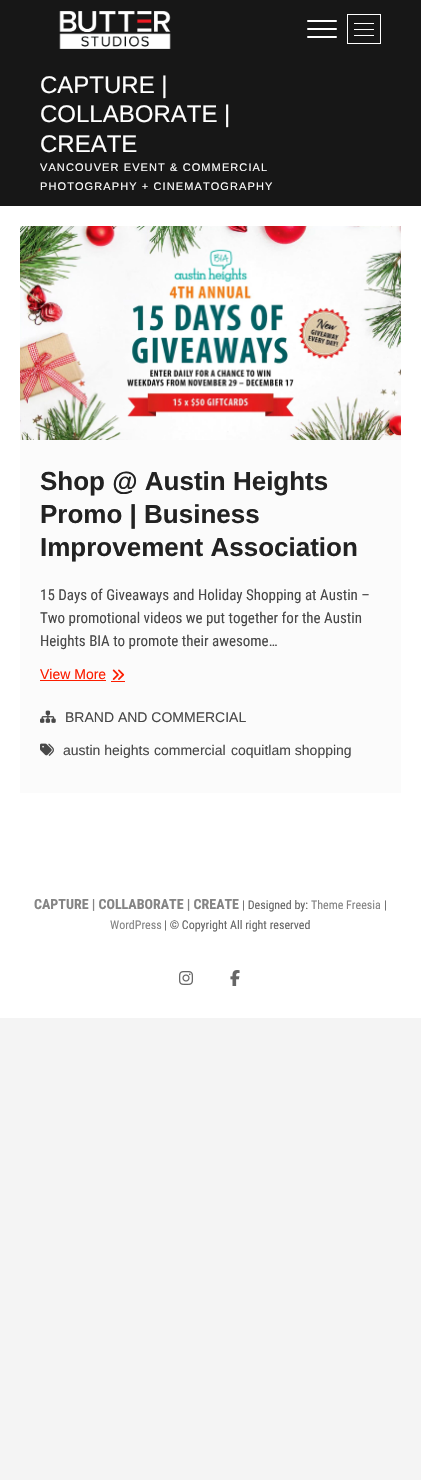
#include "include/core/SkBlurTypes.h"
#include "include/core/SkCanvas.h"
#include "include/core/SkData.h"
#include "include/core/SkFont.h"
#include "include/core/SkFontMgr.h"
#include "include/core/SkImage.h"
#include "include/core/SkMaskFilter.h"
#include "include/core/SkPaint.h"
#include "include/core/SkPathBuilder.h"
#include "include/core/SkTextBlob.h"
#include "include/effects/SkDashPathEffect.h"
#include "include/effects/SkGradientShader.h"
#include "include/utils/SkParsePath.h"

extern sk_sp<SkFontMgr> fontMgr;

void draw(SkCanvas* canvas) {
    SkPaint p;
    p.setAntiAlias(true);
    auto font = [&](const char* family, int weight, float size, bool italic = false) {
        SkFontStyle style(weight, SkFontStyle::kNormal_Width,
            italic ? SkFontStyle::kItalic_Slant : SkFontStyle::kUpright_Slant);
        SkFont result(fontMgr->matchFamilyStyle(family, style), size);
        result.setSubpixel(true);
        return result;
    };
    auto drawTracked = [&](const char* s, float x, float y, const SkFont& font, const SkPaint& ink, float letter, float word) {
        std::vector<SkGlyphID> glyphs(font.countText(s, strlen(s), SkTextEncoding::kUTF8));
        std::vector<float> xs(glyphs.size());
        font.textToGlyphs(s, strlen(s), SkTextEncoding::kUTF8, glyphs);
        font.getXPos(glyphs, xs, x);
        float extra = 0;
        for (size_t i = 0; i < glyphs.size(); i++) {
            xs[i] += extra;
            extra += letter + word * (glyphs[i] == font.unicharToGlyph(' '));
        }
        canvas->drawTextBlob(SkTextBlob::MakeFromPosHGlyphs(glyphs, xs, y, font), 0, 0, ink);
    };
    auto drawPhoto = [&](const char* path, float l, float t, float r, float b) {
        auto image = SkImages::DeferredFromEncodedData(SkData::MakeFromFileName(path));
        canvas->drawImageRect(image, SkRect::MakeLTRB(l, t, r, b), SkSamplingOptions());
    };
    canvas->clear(0xFFF4F4F4);
    p.setColor(0xFFFFFFFF);
    canvas->drawRect(SkRect::MakeLTRB(0, 206, 421, 1018), p);
    p.setColor(0xFF171717);
    canvas->drawRect(SkRect::MakeLTRB(0, 0, 421, 206), p);
    p.setColor(0xFFFFFFFF);
    canvas->drawRoundRect(SkRect::MakeLTRB(307, 28, 337, 30), 1, 1, p);
    canvas->drawRoundRect(SkRect::MakeLTRB(307, 20, 337, 22), 1, 1, p);
    canvas->drawRoundRect(SkRect::MakeLTRB(307, 36, 337, 38), 1, 1, p);
    p.setStyle(SkPaint::kStroke_Style);
    p.setStrokeWidth(1);
    canvas->drawRect(SkRect::MakeLTRB(347.5f, 14.5f, 380.5f, 43.5f), p);
    p.setStyle(SkPaint::kFill_Style);
    {
        const struct { float l, t, r, b; SkColor color; } items[] = {
            {354, 29, 374, 30, 0xFFFFFFFF},
            {354, 23, 374, 24, 0xFFFFFFFF},
            {354, 35, 374, 36, 0xFFFFFFFF},
        };
        for (auto [l, t, r, b, color] : items) {
            p.setColor(color);
            canvas->drawRect(SkRect::MakeLTRB(l, t, r, b), p);
        }
    }
    drawPhoto("media/1.png", 59, 11, 171, 49);
    auto font1 = font("Liberation Sans", 400, 24);
    {
        const struct { const char* s; float x, y; } items[] = {
            {"CAPTURE |", 40, 93},
            {"COLLABORATE |", 40, 122},
            {"CREATE", 40, 152},
        };
        for (auto [s, x, y] : items) {
            canvas->drawString(s, x, y, font1, p);
        }
    }
    auto font2 = font("Liberation Sans", 400, 11);
    drawTracked("VANCOUVER EVENT & COMMERCIAL", 40, 171, font2, p, 1.1f, 0);
    drawTracked("PHOTOGRAPHY + CINEMATOGRAPHY", 40, 190, font2, p, 1.1f, 0);
    p.setColor(0xFFFBFBFB);
    canvas->drawRect(SkRect::MakeLTRB(20, 440, 401, 793), p);
    drawPhoto("media/2.png", 20, 226, 401, 440);
    auto font3 = font("Liberation Sans", 700, 26);
    p.setColor(0xFF222222);
    {
        const struct { const char* s; float x, y; } items[] = {
            {"Shop @ Austin Heights", 40, 490},
            {"Promo | Business", 40, 523},
            {"Improvement Association", 40, 556},
        };
        for (auto [s, x, y] : items) {
            canvas->drawString(s, x, y, font3, p);
        }
    }
    auto font4 = font("Roboto Condensed", 400, 15);
    p.setColor(0xFF484848);
    {
        const struct { const char* s; float x, y; } items[] = {
            {"15 Days of Giveaways and Holiday Shopping at Austin –", 40, 600},
            {"Two promotional videos we put together for the Austin", 40, 623},
            {"Heights BIA to promote their awesome…", 40, 646},
        };
        for (auto [s, x, y] : items) {
            canvas->drawString(s, x, y, font4, p);
        }
    }
    auto font5 = font("Liberation Sans", 400, 14);
    p.setColor(0xFFFC1D00);
    canvas->drawString("View More", 40, 679, font5, p);
    canvas->drawRect(SkRect::MakeLTRB(40, 680, 106, 681), p);
    drawPhoto("media/3.png", 112, 669, 125, 680);
    canvas->drawRect(SkRect::MakeLTRB(111, 681, 125, 682), p);
    drawPhoto("media/4.png", 40, 710, 56, 723);
    p.setColor(0xFF484848);
    canvas->drawString("BRAND AND COMMERCIAL", 65, 722, font5, p);
    drawPhoto("media/5.png", 40, 743, 54, 756);
    {
        const struct { const char* s; float x, y; } items[] = {
            {"austin heights", 63, 755},
            {"commercial", 154, 755},
            {"coquitlam shopping", 231, 755},
        };
        for (auto [s, x, y] : items) {
            canvas->drawString(s, x, y, font5, p);
        }
    }
    auto font6 = font("Roboto Condensed", 700, 14);
    p.setColor(0xFF848484);
    canvas->drawString("CAPTURE | COLLABORATE | CREATE", 34, 909, font6, p);
    auto font7 = font("Roboto Condensed", 400, 12);
    p.setColor(0xFF666666);
    canvas->drawString("| Designed by:", 242, 909, font7, p);
    p.setColor(0xFF848484);
    canvas->drawString("Theme Freesia", 311, 909, font7, p);
    p.setColor(0xFF666666);
    canvas->drawString("|", 384, 909, font7, p);
    p.setColor(0xFF848484);
    canvas->drawString("WordPress", 110, 929, font7, p);
    p.setColor(0xFF666666);
    canvas->drawString("| © Copyright All right reserved", 164, 929, font7, p);
    drawPhoto("media/6.png", 179, 971, 193, 985);
    drawPhoto("media/7.png", 230, 970, 240, 986);
}
